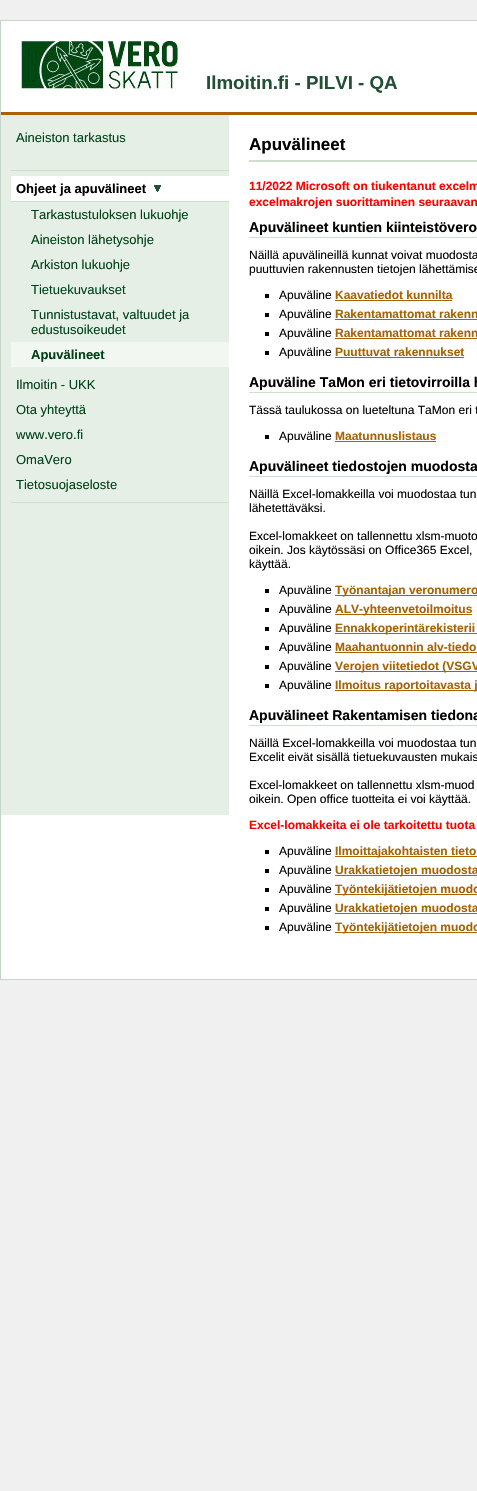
#include "include/core/SkBlurTypes.h"
#include "include/core/SkCanvas.h"
#include "include/core/SkData.h"
#include "include/core/SkFont.h"
#include "include/core/SkFontMgr.h"
#include "include/core/SkImage.h"
#include "include/core/SkMaskFilter.h"
#include "include/core/SkPaint.h"
#include "include/core/SkPathBuilder.h"
#include "include/core/SkTextBlob.h"
#include "include/effects/SkDashPathEffect.h"
#include "include/effects/SkGradientShader.h"
#include "include/utils/SkParsePath.h"

extern sk_sp<SkFontMgr> fontMgr;

void draw(SkCanvas* canvas) {
    SkPaint p;
    p.setAntiAlias(true);
    auto font = [&](const char* family, int weight, float size, bool italic = false) {
        SkFontStyle style(weight, SkFontStyle::kNormal_Width,
            italic ? SkFontStyle::kItalic_Slant : SkFontStyle::kUpright_Slant);
        SkFont result(fontMgr->matchFamilyStyle(family, style), size);
        result.setSubpixel(true);
        return result;
    };
    auto drawPhoto = [&](const char* path, float l, float t, float r, float b) {
        auto image = SkImages::DeferredFromEncodedData(SkData::MakeFromFileName(path));
        canvas->drawImageRect(image, SkRect::MakeLTRB(l, t, r, b), SkSamplingOptions());
    };
    canvas->clear(0xFFF0F0F0);
    p.setColor(0xFFFFFFFF);
    canvas->drawRect(SkRect::MakeLTRB(0.5f, 20.5f, 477.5f, 979.5f), p);
    p.setStyle(SkPaint::kStroke_Style);
    p.setStrokeWidth(1);
    p.setColor(0xFFC5D5C8);
    canvas->drawRect(SkRect::MakeLTRB(0.5f, 20.5f, 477.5f, 979.5f), p);
    p.setStyle(SkPaint::kFill_Style);
    p.setColor(0xFFA76202);
    canvas->drawRect(SkRect::MakeLTRB(1, 112, 477, 115), p);
    drawPhoto("media/1.png", 21, 41, 181, 89);
    auto font1 = font("Liberation Sans", 700, 18.75f);
    p.setColor(0xFF215134);
    canvas->drawString("Ilmoitin.fi - PILVI - QA", 206, 89, font1, p);
    p.setColor(0xFFE5EFE5);
    canvas->drawRect(SkRect::MakeLTRB(1, 115, 229, 815), p);
    auto font2 = font("Liberation Sans", 400, 13);
    p.setColor(0xFF004218);
    canvas->drawString("Aineiston tarkastus", 16, 142, font2, p);
    {
        const struct { float l, t, r, b; SkColor color; } items[] = {
            {11, 170, 229, 171, 0xFFCCE0CC},
            {11, 502, 229, 503, 0xFFCCE0CC},
            {11, 176, 229, 201, 0xFFFFFFFF},
            {11, 201, 229, 202, 0xFFCCE0CC},
        };
        for (auto [l, t, r, b, color] : items) {
            p.setColor(color);
            canvas->drawRect(SkRect::MakeLTRB(l, t, r, b), p);
        }
    }
    auto font3 = font("Liberation Sans", 700, 13);
    p.setColor(0xFF000000);
    canvas->drawString("Ohjeet ja apuvälineet", 16, 193, font3, p);
    drawPhoto("media/2.png", 154, 185, 161, 192);
    p.setColor(0xFF004218);
    {
        const struct { const char* s; float x, y; } items[] = {
            {"Tarkastustuloksen lukuohje", 31, 219},
            {"Aineiston lähetysohje", 31, 244},
            {"Arkiston lukuohje", 31, 269},
            {"Tietuekuvaukset", 31, 294},
            {"Tunnistustavat, valtuudet ja", 31, 319},
            {"edustusoikeudet", 31, 334},
        };
        for (auto [s, x, y] : items) {
            canvas->drawString(s, x, y, font2, p);
        }
    }
    p.setColor(0xFFF2F7F2);
    canvas->drawRect(SkRect::MakeLTRB(11, 342, 229, 367), p);
    p.setColor(0xFF004218);
    canvas->drawString("Apuvälineet", 31, 359, font3, p);
    {
        const struct { const char* s; float x, y; } items[] = {
            {"Ilmoitin - UKK", 16, 389},
            {"Ota yhteyttä", 16, 414},
            {"www.vero.fi", 16, 439},
            {"OmaVero", 16, 464},
            {"Tietosuojaseloste", 16, 489},
        };
        for (auto [s, x, y] : items) {
            canvas->drawString(s, x, y, font2, p);
        }
    }
    p.setColor(0xFFCCE0CC);
    canvas->drawRect(SkRect::MakeLTRB(249, 160, 477, 162), p);
    auto font4 = font("Liberation Sans", 700, 17);
    p.setColor(0xFF000000);
    canvas->drawString("Apuvälineet", 249, 150, font4, p);
    auto font5 = font("Liberation Sans", 700, 12);
    p.setColor(0xFFFF0000);
    canvas->drawString("11/2022 Microsoft on tiukentanut excelm", 249, 190, font5, p);
    canvas->drawString("excelmakrojen suorittaminen seuraavan", 249, 206, font5, p);
    p.setColor(0xFFCCE0CC);
    canvas->drawRect(SkRect::MakeLTRB(249, 237, 477, 238), p);
    auto font6 = font("Liberation Sans", 700, 14);
    p.setColor(0xFF000000);
    canvas->drawString("Apuvälineet kuntien kiinteistövero", 249, 232, font6, p);
    auto font7 = font("Liberation Sans", 400, 12);
    canvas->drawString("Näillä apuvälineillä kunnat voivat muodosta", 249, 259, font7, p);
    canvas->drawString("puuttuvien rakennusten tietojen lähettämise", 249, 273, font7, p);
    canvas->drawRect(SkRect::MakeLTRB(265, 294, 269, 298), p);
    canvas->drawString("Apuväline", 279, 299, font7, p);
    p.setColor(0xFFA76202);
    canvas->drawString("Kaavatiedot kunnilta", 335, 299, font5, p);
    canvas->drawRect(SkRect::MakeLTRB(335, 300, 452, 301), p);
    p.setColor(0xFF000000);
    canvas->drawRect(SkRect::MakeLTRB(265, 313, 269, 317), p);
    canvas->drawString("Apuväline", 279, 318, font7, p);
    p.setColor(0xFFA76202);
    canvas->drawString("Rakentamattomat rakenn", 335, 318, font5, p);
    canvas->drawRect(SkRect::MakeLTRB(335, 319, 477, 320), p);
    p.setColor(0xFF000000);
    canvas->drawRect(SkRect::MakeLTRB(265, 332, 269, 336), p);
    canvas->drawString("Apuväline", 279, 337, font7, p);
    p.setColor(0xFFA76202);
    canvas->drawString("Rakentamattomat rakenn", 335, 337, font5, p);
    canvas->drawRect(SkRect::MakeLTRB(335, 338, 477, 339), p);
    p.setColor(0xFF000000);
    canvas->drawRect(SkRect::MakeLTRB(265, 351, 269, 355), p);
    canvas->drawString("Apuväline", 279, 356, font7, p);
    p.setColor(0xFFA76202);
    canvas->drawString("Puuttuvat rakennukset", 335, 356, font5, p);
    canvas->drawRect(SkRect::MakeLTRB(335, 357, 464, 358), p);
    p.setColor(0xFFCCE0CC);
    canvas->drawRect(SkRect::MakeLTRB(249, 392, 477, 393), p);
    p.setColor(0xFF000000);
    canvas->drawString("Apuväline TaMon eri tietovirroilla h", 249, 387, font6, p);
    canvas->drawString("Tässä taulukossa on lueteltuna TaMon eri t", 249, 414, font7, p);
    canvas->drawRect(SkRect::MakeLTRB(265, 435, 269, 439), p);
    canvas->drawString("Apuväline", 279, 440, font7, p);
    p.setColor(0xFFA76202);
    canvas->drawString("Maatunnuslistaus", 335, 440, font5, p);
    canvas->drawRect(SkRect::MakeLTRB(335, 441, 436, 442), p);
    p.setColor(0xFFCCE0CC);
    canvas->drawRect(SkRect::MakeLTRB(249, 476, 477, 477), p);
    p.setColor(0xFF000000);
    canvas->drawString("Apuvälineet tiedostojen muodosta", 249, 471, font6, p);
    {
        const struct { const char* s; float x, y; } items[] = {
            {"Näillä Excel-lomakkeilla voi muodostaa tun", 249, 498},
            {"lähetettäväksi.", 249, 512},
            {"Excel-lomakkeet on tallennettu xlsm-muoto", 249, 540},
            {"oikein. Jos käytössäsi on Office365 Excel,", 249, 554},
            {"käyttää.", 249, 568},
        };
        for (auto [s, x, y] : items) {
            canvas->drawString(s, x, y, font7, p);
        }
    }
    canvas->drawRect(SkRect::MakeLTRB(265, 589, 269, 593), p);
    canvas->drawString("Apuväline", 279, 594, font7, p);
    p.setColor(0xFFA76202);
    canvas->drawRect(SkRect::MakeLTRB(335, 595, 477, 596), p);
    canvas->drawString("Työnantajan veronumero", 335, 594, font5, p);
    p.setColor(0xFF000000);
    canvas->drawRect(SkRect::MakeLTRB(265, 608, 269, 612), p);
    canvas->drawString("Apuväline", 279, 613, font7, p);
    p.setColor(0xFFA76202);
    canvas->drawRect(SkRect::MakeLTRB(335, 614, 472, 615), p);
    canvas->drawString("ALV-yhteenvetoilmoitus", 335, 613, font5, p);
    p.setColor(0xFF000000);
    canvas->drawRect(SkRect::MakeLTRB(265, 627, 269, 631), p);
    canvas->drawString("Apuväline", 279, 632, font7, p);
    p.setColor(0xFFA76202);
    canvas->drawRect(SkRect::MakeLTRB(335, 633, 477, 634), p);
    canvas->drawString("Ennakkoperintärekisterii", 335, 632, font5, p);
    p.setColor(0xFF000000);
    canvas->drawRect(SkRect::MakeLTRB(265, 646, 269, 650), p);
    canvas->drawString("Apuväline", 279, 651, font7, p);
    p.setColor(0xFFA76202);
    canvas->drawString("Maahantuonnin alv-tiedo", 335, 651, font5, p);
    canvas->drawRect(SkRect::MakeLTRB(335, 652, 477, 653), p);
    p.setColor(0xFF000000);
    canvas->drawRect(SkRect::MakeLTRB(265, 665, 269, 669), p);
    canvas->drawString("Apuväline", 279, 670, font7, p);
    p.setColor(0xFFA76202);
    canvas->drawRect(SkRect::MakeLTRB(335, 671, 477, 672), p);
    canvas->drawString("Verojen viitetiedot (VSGV", 335, 670, font5, p);
    p.setColor(0xFF000000);
    canvas->drawRect(SkRect::MakeLTRB(265, 684, 269, 688), p);
    canvas->drawString("Apuväline", 279, 689, font7, p);
    p.setColor(0xFFA76202);
    canvas->drawRect(SkRect::MakeLTRB(335, 690, 477, 691), p);
    canvas->drawString("Ilmoitus raportoitavasta j", 335, 689, font5, p);
    p.setColor(0xFFCCE0CC);
    canvas->drawRect(SkRect::MakeLTRB(249, 725, 477, 726), p);
    p.setColor(0xFF000000);
    canvas->drawString("Apuvälineet Rakentamisen tiedona", 249, 720, font6, p);
    {
        const struct { const char* s; float x, y; } items[] = {
            {"Näillä Excel-lomakkeilla voi muodostaa tun", 249, 747},
            {"Excelit eivät sisällä tietuekuvausten mukais", 249, 761},
            {"Excel-lomakkeet on tallennettu xlsm-muod", 249, 789},
            {"oikein. Open office tuotteita ei voi käyttää.", 249, 803},
        };
        for (auto [s, x, y] : items) {
            canvas->drawString(s, x, y, font7, p);
        }
    }
    p.setColor(0xFFFF0000);
    canvas->drawString("Excel-lomakkeita ei ole tarkoitettu tuota", 249, 829, font5, p);
    p.setColor(0xFF000000);
    canvas->drawRect(SkRect::MakeLTRB(265, 850, 269, 854), p);
    canvas->drawString("Apuväline", 279, 855, font7, p);
    p.setColor(0xFFA76202);
    canvas->drawRect(SkRect::MakeLTRB(335, 856, 477, 857), p);
    canvas->drawString("Ilmoittajakohtaisten tieto", 335, 855, font5, p);
    p.setColor(0xFF000000);
    canvas->drawRect(SkRect::MakeLTRB(265, 869, 269, 873), p);
    canvas->drawString("Apuväline", 279, 874, font7, p);
    p.setColor(0xFFA76202);
    canvas->drawRect(SkRect::MakeLTRB(335, 875, 477, 876), p);
    canvas->drawString("Urakkatietojen muodosta", 335, 874, font5, p);
    p.setColor(0xFF000000);
    canvas->drawRect(SkRect::MakeLTRB(265, 888, 269, 892), p);
    canvas->drawString("Apuväline", 279, 893, font7, p);
    p.setColor(0xFFA76202);
    canvas->drawRect(SkRect::MakeLTRB(335, 894, 477, 895), p);
    canvas->drawString("Työntekijätietojen muodo", 335, 893, font5, p);
    p.setColor(0xFF000000);
    canvas->drawRect(SkRect::MakeLTRB(265, 907, 269, 911), p);
    canvas->drawString("Apuväline", 279, 912, font7, p);
    p.setColor(0xFFA76202);
    canvas->drawRect(SkRect::MakeLTRB(335, 913, 477, 914), p);
    canvas->drawString("Urakkatietojen muodosta", 335, 912, font5, p);
    p.setColor(0xFF000000);
    canvas->drawRect(SkRect::MakeLTRB(265, 926, 269, 930), p);
    canvas->drawString("Apuväline", 279, 931, font7, p);
    p.setColor(0xFFA76202);
    canvas->drawRect(SkRect::MakeLTRB(335, 932, 477, 933), p);
    canvas->drawString("Työntekijätietojen muodo", 335, 931, font5, p);
}
